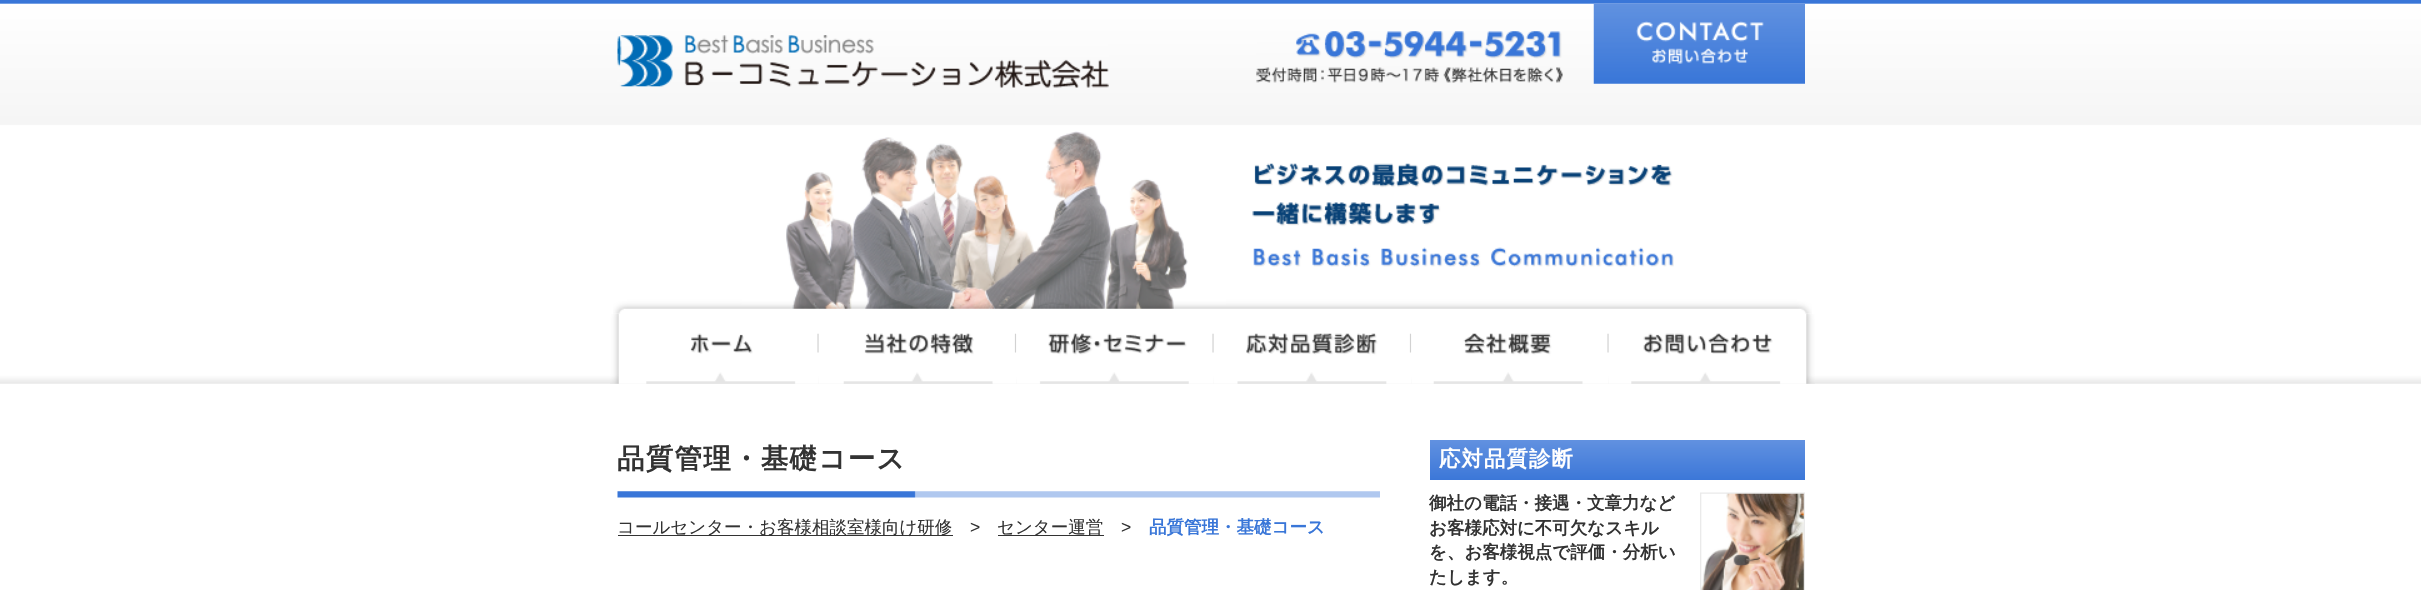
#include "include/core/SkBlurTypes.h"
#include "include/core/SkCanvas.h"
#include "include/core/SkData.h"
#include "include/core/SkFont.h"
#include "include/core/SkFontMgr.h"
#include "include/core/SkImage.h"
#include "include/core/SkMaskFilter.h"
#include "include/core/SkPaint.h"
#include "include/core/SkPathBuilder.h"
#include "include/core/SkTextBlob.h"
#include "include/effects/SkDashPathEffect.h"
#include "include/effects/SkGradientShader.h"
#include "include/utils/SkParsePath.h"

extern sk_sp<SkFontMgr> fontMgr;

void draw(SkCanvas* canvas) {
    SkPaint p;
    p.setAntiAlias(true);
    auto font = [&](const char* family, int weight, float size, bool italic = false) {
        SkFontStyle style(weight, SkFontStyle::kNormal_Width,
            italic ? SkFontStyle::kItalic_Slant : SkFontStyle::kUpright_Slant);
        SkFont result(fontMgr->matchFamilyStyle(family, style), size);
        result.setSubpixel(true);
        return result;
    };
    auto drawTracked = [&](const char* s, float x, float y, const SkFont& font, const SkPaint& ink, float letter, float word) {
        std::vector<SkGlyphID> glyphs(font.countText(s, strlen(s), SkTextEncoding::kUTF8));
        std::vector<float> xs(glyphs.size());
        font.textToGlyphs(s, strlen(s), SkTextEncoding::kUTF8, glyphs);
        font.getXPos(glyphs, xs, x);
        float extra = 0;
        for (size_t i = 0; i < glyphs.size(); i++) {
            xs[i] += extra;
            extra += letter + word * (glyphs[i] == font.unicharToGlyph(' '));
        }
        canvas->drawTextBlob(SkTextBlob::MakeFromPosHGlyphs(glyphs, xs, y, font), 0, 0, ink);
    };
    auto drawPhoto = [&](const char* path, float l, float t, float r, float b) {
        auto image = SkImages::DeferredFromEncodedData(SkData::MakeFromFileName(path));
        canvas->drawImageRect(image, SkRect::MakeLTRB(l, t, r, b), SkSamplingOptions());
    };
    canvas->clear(0xFFFFFFFF);
    drawPhoto("media/1.png", 0, 0, 2421, 384);
    drawPhoto("media/2.png", 617, 35, 1109, 88);
    drawPhoto("media/3.png", 1256, 31, 1563, 83);
    drawPhoto("media/4.png", 1593, 3, 1805, 84);
    drawPhoto("media/5.png", 613, 131, 1812, 314);
    drawPhoto("media/6.png", 610, 314, 819, 384);
    drawPhoto("media/7.png", 818, 333, 1017, 384);
    drawPhoto("media/8.png", 1016, 333, 1214, 384);
    drawPhoto("media/9.png", 1213, 333, 1412, 384);
    drawPhoto("media/10.png", 1411, 333, 1609, 384);
    drawPhoto("media/11.png", 1608, 314, 1815, 384);
    drawPhoto("media/12.png", 617, 491, 1380, 498);
    auto font1 = font("WenQuanYi Zen Hei", 700, 27.5f);
    p.setColor(0xFF333333);
    drawTracked("品質管理・基礎コース", 617, 468, font1, p, 1.25f, 0);
    canvas->drawRect(SkRect::MakeLTRB(618, 535, 953, 536), p);
    auto font2 = font("WenQuanYi Zen Hei", 500, 17.5f);
    canvas->drawString("コールセンター・お客様相談室様向け研修", 617, 533, font2, p);
    auto font3 = font("Liberation Sans", 400, 17.5f);
    canvas->drawString(">", 970, 533, font3, p);
    canvas->drawRect(SkRect::MakeLTRB(998, 535, 1104, 536), p);
    canvas->drawString("センター運営", 997, 533, font2, p);
    canvas->drawString(">", 1121, 533, font3, p);
    auto font4 = font("WenQuanYi Zen Hei", 700, 17.5f);
    p.setColor(0xFF3976D8);
    canvas->drawString("品質管理・基礎コース", 1149, 533, font4, p);
    {
        const SkColor colors[] = {0xFF6191E0, 0xFF3C77D8};
        const float stops[] = {0, 1};
        const SkPoint ends[] = {{1618, 440}, {1618, 480}};
        p.setShader(SkGradientShader::MakeLinear(ends, colors, stops, 2, SkTileMode::kClamp));
        p.setAlpha(255);
    }
    canvas->drawRect(SkRect::MakeLTRB(1430, 440, 1805, 480), p);
    auto font5 = font("WenQuanYi Zen Hei", 700, 21.25f);
    p.setShader(nullptr);
    p.setColor(0xFFFFFFFF);
    drawTracked("応対品質診断", 1439, 466, font5, p, 1.25f, 0);
    p.setColor(0xFF333333);
    canvas->drawString("御社の電話・接遇・文章力など", 1429, 509, font4, p);
    drawPhoto("media/13.png", 1700, 492, 1805, 590);
    {
        const struct { const char* s; float x, y; } items[] = {
            {"お客様応対に不可欠なスキル", 1429, 534},
            {"を、お客様視点で評価・分析い", 1429, 558},
            {"たします。", 1429, 583},
        };
        for (auto [s, x, y] : items) {
            canvas->drawString(s, x, y, font4, p);
        }
    }
}
